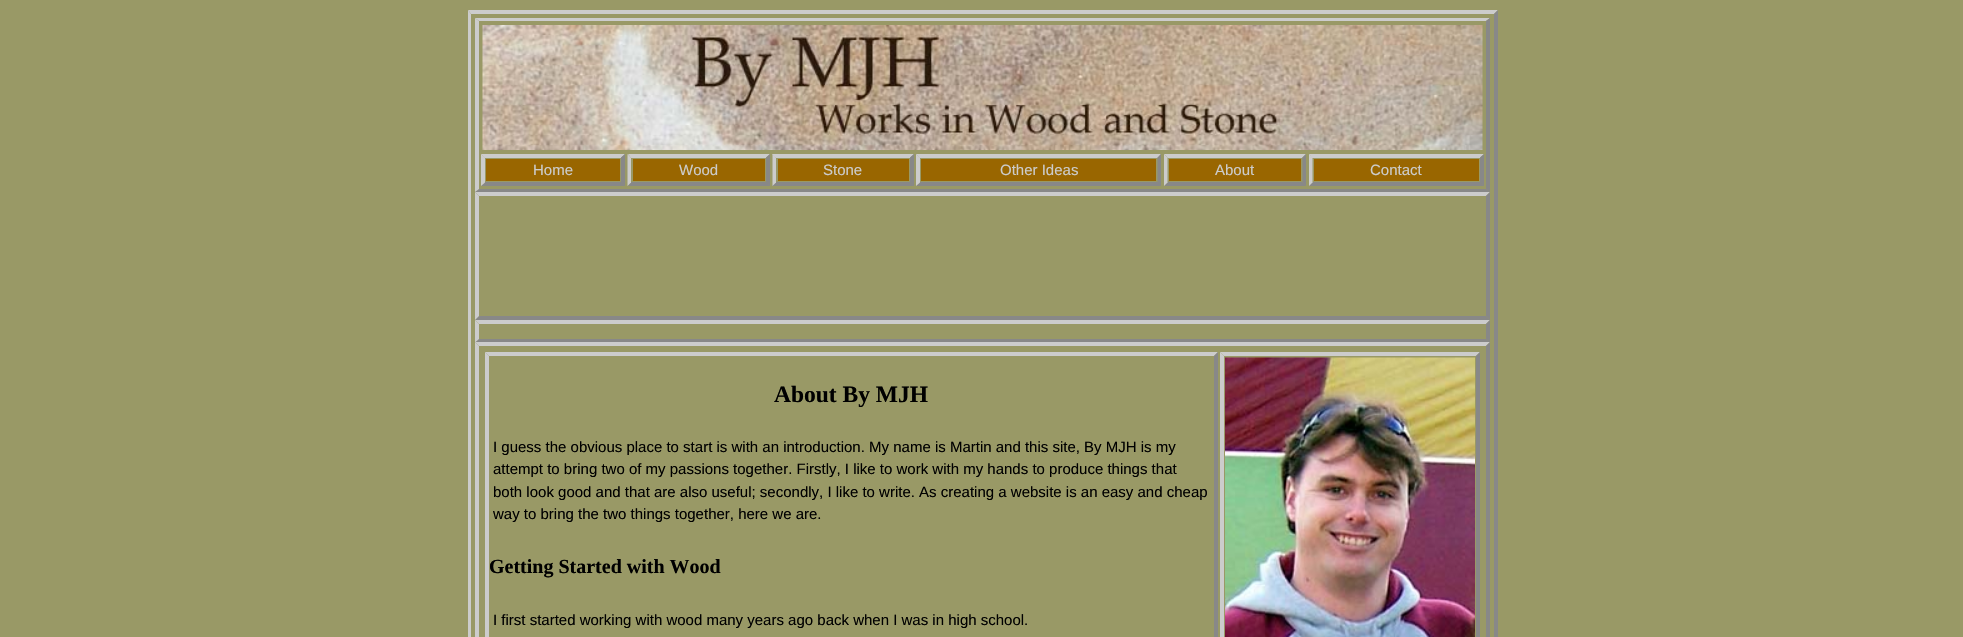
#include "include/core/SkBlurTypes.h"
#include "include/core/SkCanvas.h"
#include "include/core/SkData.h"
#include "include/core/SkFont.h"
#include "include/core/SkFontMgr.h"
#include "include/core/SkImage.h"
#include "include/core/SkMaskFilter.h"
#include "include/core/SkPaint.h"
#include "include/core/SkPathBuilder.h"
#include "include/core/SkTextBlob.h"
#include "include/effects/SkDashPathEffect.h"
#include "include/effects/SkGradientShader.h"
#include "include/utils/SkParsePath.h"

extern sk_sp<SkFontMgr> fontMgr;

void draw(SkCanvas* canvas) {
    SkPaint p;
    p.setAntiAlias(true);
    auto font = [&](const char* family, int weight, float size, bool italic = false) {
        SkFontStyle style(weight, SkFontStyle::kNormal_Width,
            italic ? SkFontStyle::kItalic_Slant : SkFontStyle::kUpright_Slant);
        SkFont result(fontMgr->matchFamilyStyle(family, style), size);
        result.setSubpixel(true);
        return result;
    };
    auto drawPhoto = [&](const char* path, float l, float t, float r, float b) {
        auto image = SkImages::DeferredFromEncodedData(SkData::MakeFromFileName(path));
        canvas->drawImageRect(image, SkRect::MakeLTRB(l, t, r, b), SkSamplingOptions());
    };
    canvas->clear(0xFF999966);
    p.setColor(0xFFCCCCCC);
    canvas->drawPath(SkPathBuilder().moveTo(468, 10).lineTo(1498, 10).lineTo(1494, 14).lineTo(471, 14).close().detach(), p);
    p.setColor(0xFF888888);
    canvas->drawPath(SkPathBuilder().moveTo(1498, 10).lineTo(1498, 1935).lineTo(1494, 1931).lineTo(1494, 14).close().detach(), p);
    p.setColor(0xFFCCCCCC);
    canvas->drawPath(SkPathBuilder().moveTo(468, 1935).lineTo(468, 10).lineTo(471, 14).lineTo(471, 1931).close().detach(), p);
    canvas->drawPath(SkPathBuilder().moveTo(475, 18).lineTo(1490, 18).lineTo(1486, 21).lineTo(479, 21).close().detach(), p);
    p.setColor(0xFF888888);
    canvas->drawPath(SkPathBuilder().moveTo(1490, 18).lineTo(1490, 192).lineTo(1486, 189).lineTo(1486, 21).close().detach(), p);
    canvas->drawPath(SkPathBuilder().moveTo(1490, 192).lineTo(475, 192).lineTo(479, 189).lineTo(1486, 189).close().detach(), p);
    p.setColor(0xFFCCCCCC);
    canvas->drawPath(SkPathBuilder().moveTo(475, 192).lineTo(475, 18).lineTo(479, 21).lineTo(479, 189).close().detach(), p);
    drawPhoto("media/1.png", 482, 25, 1483, 150);
    canvas->drawPath(SkPathBuilder().moveTo(481, 154).lineTo(625, 154).lineTo(621, 158).lineTo(485, 158).close().detach(), p);
    p.setColor(0xFF888888);
    canvas->drawPath(SkPathBuilder().moveTo(625, 154).lineTo(625, 186).lineTo(621, 182.5f).lineTo(621, 157.5f).close().detach(), p);
    canvas->drawPath(SkPathBuilder().moveTo(625, 186).lineTo(481, 186).lineTo(485, 182).lineTo(621, 182).close().detach(), p);
    p.setColor(0xFFCCCCCC);
    canvas->drawPath(SkPathBuilder().moveTo(481, 186).lineTo(481, 154).lineTo(485, 157.5f).lineTo(485, 182.5f).close().detach(), p);
    p.setColor(0xFF996600);
    canvas->drawRect(SkRect::MakeLTRB(486, 159, 620, 181), p);
    auto font1 = font("Liberation Sans", 400, 15);
    p.setColor(0xFFCCCCCC);
    canvas->drawString("Home", 533, 175, font1, p);
    canvas->drawPath(SkPathBuilder().moveTo(628, 154).lineTo(770, 154).lineTo(766, 158).lineTo(631, 158).close().detach(), p);
    p.setColor(0xFF888888);
    canvas->drawPath(SkPathBuilder().moveTo(770, 154).lineTo(770, 186).lineTo(766, 182.5f).lineTo(766, 157.5f).close().detach(), p);
    canvas->drawPath(SkPathBuilder().moveTo(770, 186).lineTo(628, 186).lineTo(631, 182).lineTo(766, 182).close().detach(), p);
    p.setColor(0xFFCCCCCC);
    canvas->drawPath(SkPathBuilder().moveTo(627.5f, 186).lineTo(627.5f, 154).lineTo(631, 157.5f).lineTo(631, 182.5f).close().detach(), p);
    p.setColor(0xFF996600);
    canvas->drawRect(SkRect::MakeLTRB(633, 159, 765, 181), p);
    p.setColor(0xFFCCCCCC);
    canvas->drawString("Wood", 679, 175, font1, p);
    canvas->drawPath(SkPathBuilder().moveTo(772, 154).lineTo(914, 154).lineTo(910, 158).lineTo(776, 158).close().detach(), p);
    p.setColor(0xFF888888);
    canvas->drawPath(SkPathBuilder().moveTo(914, 154).lineTo(914, 186).lineTo(910, 182.5f).lineTo(910, 157.5f).close().detach(), p);
    canvas->drawPath(SkPathBuilder().moveTo(914, 186).lineTo(772, 186).lineTo(776, 182).lineTo(910, 182).close().detach(), p);
    p.setColor(0xFFCCCCCC);
    canvas->drawPath(SkPathBuilder().moveTo(772.5f, 186).lineTo(772.5f, 154).lineTo(776, 157.5f).lineTo(776, 182.5f).close().detach(), p);
    p.setColor(0xFF996600);
    canvas->drawRect(SkRect::MakeLTRB(778, 159, 909, 181), p);
    p.setColor(0xFFCCCCCC);
    canvas->drawString("Stone", 823, 175, font1, p);
    canvas->drawPath(SkPathBuilder().moveTo(916, 154).lineTo(1161, 154).lineTo(1158, 158).lineTo(920, 158).close().detach(), p);
    p.setColor(0xFF888888);
    canvas->drawPath(SkPathBuilder().moveTo(1161, 154).lineTo(1161, 186).lineTo(1157.5f, 182.5f).lineTo(1157.5f, 157.5f).close().detach(), p);
    canvas->drawPath(SkPathBuilder().moveTo(1161, 186).lineTo(916, 186).lineTo(920, 182).lineTo(1158, 182).close().detach(), p);
    p.setColor(0xFFCCCCCC);
    canvas->drawPath(SkPathBuilder().moveTo(916, 186).lineTo(916, 154).lineTo(920, 157.5f).lineTo(920, 182.5f).close().detach(), p);
    p.setColor(0xFF996600);
    canvas->drawRect(SkRect::MakeLTRB(921, 159, 1156, 181), p);
    p.setColor(0xFFCCCCCC);
    canvas->drawString("Other Ideas", 1000, 175, font1, p);
    canvas->drawPath(SkPathBuilder().moveTo(1164, 154).lineTo(1306, 154).lineTo(1302, 158).lineTo(1168, 158).close().detach(), p);
    p.setColor(0xFF888888);
    canvas->drawPath(SkPathBuilder().moveTo(1306, 154).lineTo(1306, 186).lineTo(1302.5f, 182.5f).lineTo(1302.5f, 157.5f).close().detach(), p);
    canvas->drawPath(SkPathBuilder().moveTo(1306, 186).lineTo(1164, 186).lineTo(1168, 182).lineTo(1302, 182).close().detach(), p);
    p.setColor(0xFFCCCCCC);
    canvas->drawPath(SkPathBuilder().moveTo(1164, 186).lineTo(1164, 154).lineTo(1167.5f, 157.5f).lineTo(1167.5f, 182.5f).close().detach(), p);
    p.setColor(0xFF996600);
    canvas->drawRect(SkRect::MakeLTRB(1169, 159, 1301, 181), p);
    p.setColor(0xFFCCCCCC);
    canvas->drawString("About", 1215, 175, font1, p);
    canvas->drawPath(SkPathBuilder().moveTo(1309, 154).lineTo(1484, 154).lineTo(1480, 158).lineTo(1312, 158).close().detach(), p);
    p.setColor(0xFF888888);
    canvas->drawPath(SkPathBuilder().moveTo(1484, 154).lineTo(1484, 186).lineTo(1480, 182.5f).lineTo(1480, 157.5f).close().detach(), p);
    canvas->drawPath(SkPathBuilder().moveTo(1484, 186).lineTo(1309, 186).lineTo(1312, 182).lineTo(1480, 182).close().detach(), p);
    p.setColor(0xFFCCCCCC);
    canvas->drawPath(SkPathBuilder().moveTo(1309, 186).lineTo(1309, 154).lineTo(1312.5f, 157.5f).lineTo(1312.5f, 182.5f).close().detach(), p);
    p.setColor(0xFF996600);
    canvas->drawRect(SkRect::MakeLTRB(1314, 159, 1479, 181), p);
    p.setColor(0xFFCCCCCC);
    canvas->drawString("Contact", 1370, 175, font1, p);
    canvas->drawPath(SkPathBuilder().moveTo(475, 192).lineTo(1490, 192).lineTo(1486, 196).lineTo(479, 196).close().detach(), p);
    p.setColor(0xFF888888);
    canvas->drawPath(SkPathBuilder().moveTo(1490, 192).lineTo(1490, 320).lineTo(1486, 316).lineTo(1486, 196).close().detach(), p);
    canvas->drawPath(SkPathBuilder().moveTo(1490, 320).lineTo(475, 320).lineTo(479, 316).lineTo(1486, 316).close().detach(), p);
    p.setColor(0xFFCCCCCC);
    canvas->drawPath(SkPathBuilder().moveTo(475, 320).lineTo(475, 192).lineTo(479, 196).lineTo(479, 316).close().detach(), p);
    canvas->drawPath(SkPathBuilder().moveTo(475, 320).lineTo(1490, 320).lineTo(1486, 324).lineTo(479, 324).close().detach(), p);
    p.setColor(0xFF888888);
    canvas->drawPath(SkPathBuilder().moveTo(1490, 320).lineTo(1490, 342.5f).lineTo(1486, 339).lineTo(1486, 324).close().detach(), p);
    canvas->drawPath(SkPathBuilder().moveTo(1490, 342).lineTo(475, 342).lineTo(479, 339).lineTo(1486, 339).close().detach(), p);
    p.setColor(0xFFCCCCCC);
    canvas->drawPath(SkPathBuilder().moveTo(475, 342.5f).lineTo(475, 320).lineTo(479, 324).lineTo(479, 339).close().detach(), p);
    canvas->drawPath(SkPathBuilder().moveTo(475, 342).lineTo(1490, 342).lineTo(1486, 346).lineTo(479, 346).close().detach(), p);
    p.setColor(0xFF888888);
    canvas->drawPath(SkPathBuilder().moveTo(1490, 342).lineTo(1490, 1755).lineTo(1486, 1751).lineTo(1486, 346).close().detach(), p);
    p.setColor(0xFFCCCCCC);
    canvas->drawPath(SkPathBuilder().moveTo(475, 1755).lineTo(475, 342).lineTo(479, 346).lineTo(479, 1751).close().detach(), p);
    canvas->drawPath(SkPathBuilder().moveTo(485, 352).lineTo(1218, 352).lineTo(1214, 356).lineTo(489, 356).close().detach(), p);
    p.setColor(0xFF888888);
    canvas->drawPath(SkPathBuilder().moveTo(1218, 352).lineTo(1218, 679).lineTo(1214, 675).lineTo(1214, 356).close().detach(), p);
    p.setColor(0xFFCCCCCC);
    canvas->drawPath(SkPathBuilder().moveTo(485, 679).lineTo(485, 352).lineTo(489, 356).lineTo(489, 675).close().detach(), p);
    auto font2 = font("Liberation Serif", 700, 23.5f);
    p.setColor(0xFF000000);
    canvas->drawString("About By MJH", 774, 402, font2, p);
    {
        const struct { const char* s; float x, y; } items[] = {
            {"I guess the obvious place to start is with an introduction. My name is Martin and this site, By MJH is my", 493, 452},
            {"attempt to bring two of my passions together. Firstly, I like to work with my hands to produce things that", 493, 474},
            {"both look good and that are also useful; secondly, I like to write. As creating a website is an easy and cheap", 493, 497},
            {"way to bring the two things together, here we are.", 493, 519},
        };
        for (auto [s, x, y] : items) {
            canvas->drawString(s, x, y, font1, p);
        }
    }
    auto font3 = font("Liberation Serif", 700, 20);
    canvas->drawString("Getting Started with Wood", 489, 573, font3, p);
    canvas->drawString("I first started working with wood many years ago back when I was in high school.", 493, 625, font1, p);
    p.setColor(0xFFCCCCCC);
    canvas->drawPath(SkPathBuilder().moveTo(1220, 352).lineTo(1480, 352).lineTo(1476, 356).lineTo(1224, 356).close().detach(), p);
    p.setColor(0xFF888888);
    canvas->drawPath(SkPathBuilder().moveTo(1480, 352).lineTo(1480, 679).lineTo(1476, 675).lineTo(1476, 356).close().detach(), p);
    p.setColor(0xFFCCCCCC);
    canvas->drawPath(SkPathBuilder().moveTo(1220, 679).lineTo(1220, 352).lineTo(1224, 356).lineTo(1224, 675).close().detach(), p);
    drawPhoto("media/2.png", 1225, 357, 1475, 637);
}
